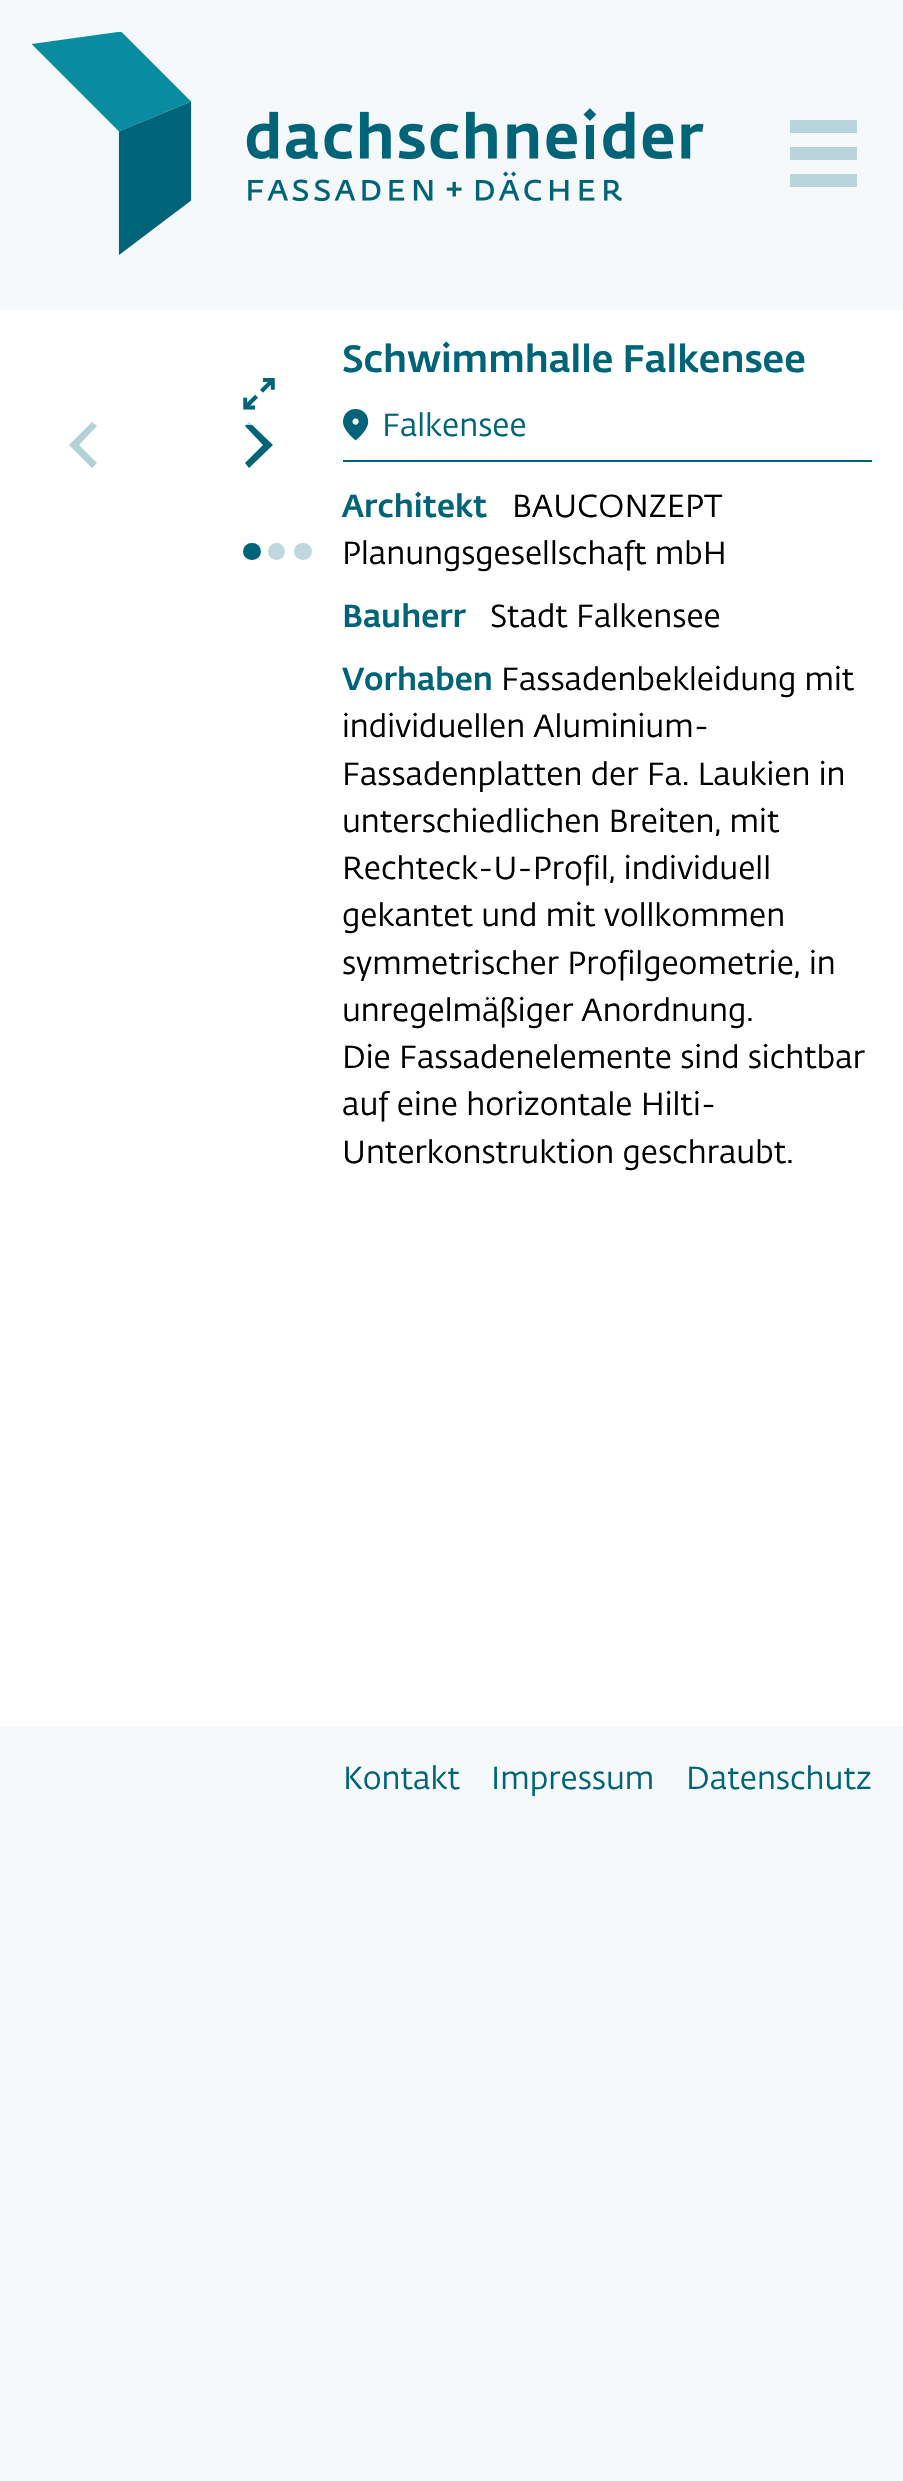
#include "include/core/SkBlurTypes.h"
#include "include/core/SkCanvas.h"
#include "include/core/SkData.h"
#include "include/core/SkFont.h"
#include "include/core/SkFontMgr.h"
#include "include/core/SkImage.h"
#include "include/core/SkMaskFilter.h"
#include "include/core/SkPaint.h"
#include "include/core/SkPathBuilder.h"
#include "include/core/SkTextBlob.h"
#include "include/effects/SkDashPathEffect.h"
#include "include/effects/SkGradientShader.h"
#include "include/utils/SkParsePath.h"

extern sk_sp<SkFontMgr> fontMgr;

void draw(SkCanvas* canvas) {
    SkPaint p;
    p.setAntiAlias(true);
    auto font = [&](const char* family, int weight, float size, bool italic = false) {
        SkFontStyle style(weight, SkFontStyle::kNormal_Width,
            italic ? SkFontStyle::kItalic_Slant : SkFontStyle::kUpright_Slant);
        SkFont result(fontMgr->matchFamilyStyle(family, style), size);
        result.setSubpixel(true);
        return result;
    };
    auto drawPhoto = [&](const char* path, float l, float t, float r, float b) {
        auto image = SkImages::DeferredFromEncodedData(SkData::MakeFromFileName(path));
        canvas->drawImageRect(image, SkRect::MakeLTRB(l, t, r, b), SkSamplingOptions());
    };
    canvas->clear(0xFFFFFFFF);
    p.setColor(0xFFF6F9FB);
    canvas->drawRect(SkRect::MakeLTRB(0, 0, 903, 310), p);
    drawPhoto("media/1.png", 32, 32, 704, 255);
    {
        const struct { float l, t, r, b; SkColor color; } items[] = {
            {790, 120, 857, 133, 0xFFB9D4DA},
            {790, 147, 857, 160, 0xFFB9D4DA},
            {790, 174, 857, 187, 0xFFB9D4DA},
        };
        for (auto [l, t, r, b, color] : items) {
            p.setColor(color);
            canvas->drawRect(SkRect::MakeLTRB(l, t, r, b), p);
        }
    }
    p.setColor(0xFF006478);
    canvas->drawPath(SkPathBuilder().moveTo(273, 445).lineTo(249, 422).lineTo(245, 426).lineTo(263, 445).lineTo(245, 463).lineTo(249, 468).close().detach(), p);
    p.setColor(0xBFFFFFFF);
    canvas->drawRoundRect(SkRect::MakeLTRB(228, 362, 291, 425), 7, 7, p);
    drawPhoto("media/2.png", 243, 378, 275, 410);
    p.setColor(0xFFB3D1D7);
    canvas->drawPath(SkPathBuilder().moveTo(69, 445).lineTo(92, 468).lineTo(97, 463).lineTo(79, 445).lineTo(97, 426).lineTo(92, 422).close().detach(), p);
    p.setColor(0xFF006478);
    canvas->drawRoundRect(SkRect::MakeLTRB(243, 543, 261, 560), 8.5f, 8.5f, p);
    p.setColor(0xFFBFD8DD);
    canvas->drawCircle(276.5f, 551.5f, 8.5f, p);
    canvas->drawRoundRect(SkRect::MakeLTRB(294, 543, 312, 560), 8.5f, 8.5f, p);
    auto font1 = font("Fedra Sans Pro", 500, 37.75f);
    p.setColor(0xFF006478);
    canvas->drawString("Schwimmhalle Falkensee", 342, 372, font1, p);
    canvas->drawRect(SkRect::MakeLTRB(343, 460, 872, 462), p);
    drawPhoto("media/3.png", 343, 409, 369, 441);
    auto font2 = font("Fedra Sans Pro", 400, 31.5f);
    canvas->drawString("Falkensee", 382, 436, font2, p);
    auto font3 = font("Fedra Sans Pro", 500, 31.5f);
    canvas->drawString("Architekt", 342, 517, font3, p);
    p.setColor(0xFF000000);
    canvas->drawString("BAUCONZEPT", 512, 517, font2, p);
    canvas->drawString("Planungsgesellschaft mbH", 342, 564, font2, p);
    p.setColor(0xFF006478);
    canvas->drawString("Bauherr", 342, 627, font3, p);
    p.setColor(0xFF000000);
    canvas->drawString("Stadt Falkensee", 490, 627, font2, p);
    p.setColor(0xFF006478);
    canvas->drawString("Vorhaben", 342, 690, font3, p);
    p.setColor(0xFF000000);
    {
        const struct { const char* s; float x, y; } items[] = {
            {"Fassadenbekleidung mit", 501, 690},
            {"individuellen Aluminium-", 342, 737},
            {"Fassadenplatten der Fa. Laukien in", 342, 785},
            {"unterschiedlichen Breiten, mit", 342, 832},
            {"Rechteck-U-Profil, individuell", 342, 879},
            {"gekantet und mit vollkommen", 342, 926},
            {"symmetrischer Profilgeometrie, in", 342, 974},
            {"unregelmäßiger Anordnung.", 342, 1021},
            {"Die Fassadenelemente sind sichtbar", 342, 1068},
            {"auf eine horizontale Hilti-", 342, 1115},
            {"Unterkonstruktion geschraubt.", 342, 1163},
        };
        for (auto [s, x, y] : items) {
            canvas->drawString(s, x, y, font2, p);
        }
    }
    p.setColor(0xFFF6F9FB);
    canvas->drawRect(SkRect::MakeLTRB(0, 1726, 903, 2481), p);
    p.setColor(0xFF006478);
    {
        const struct { const char* s; float x, y; } items[] = {
            {"Kontakt", 343, 1789},
            {"Impressum", 491, 1789},
            {"Datenschutz", 686, 1789},
        };
        for (auto [s, x, y] : items) {
            canvas->drawString(s, x, y, font2, p);
        }
    }
}
